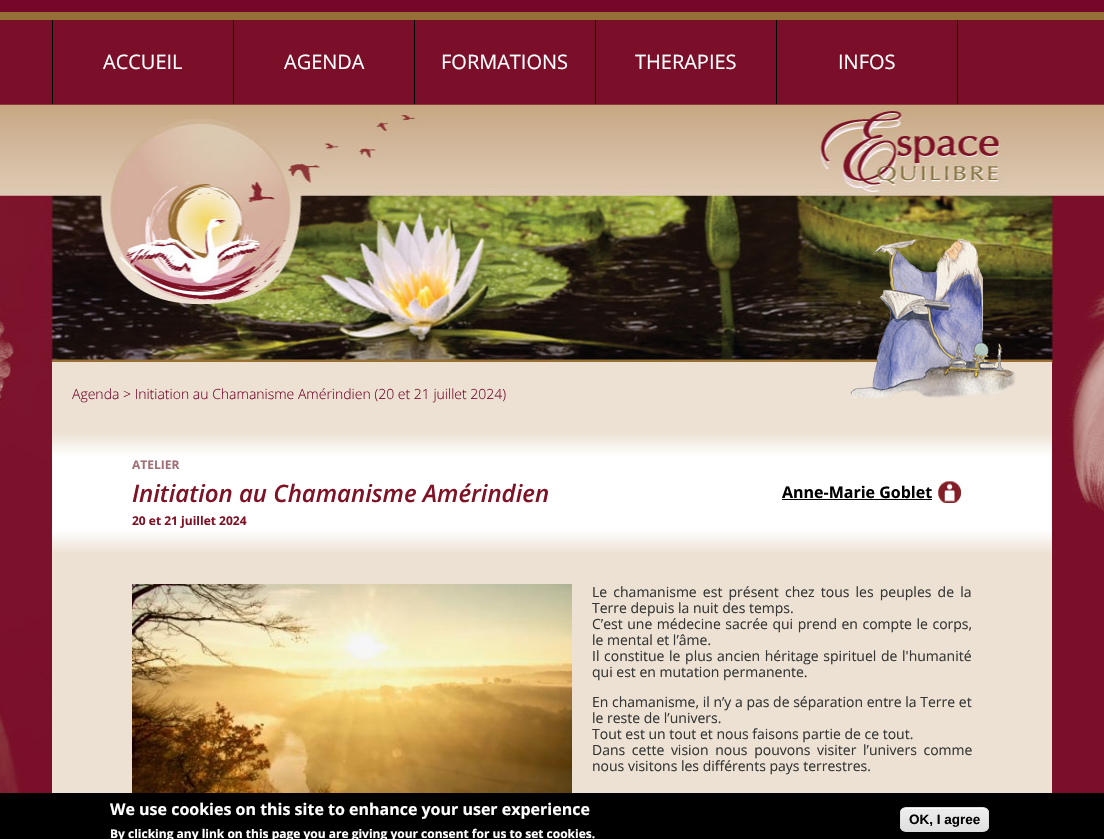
#include "include/core/SkBlurTypes.h"
#include "include/core/SkCanvas.h"
#include "include/core/SkData.h"
#include "include/core/SkFont.h"
#include "include/core/SkFontMgr.h"
#include "include/core/SkImage.h"
#include "include/core/SkMaskFilter.h"
#include "include/core/SkPaint.h"
#include "include/core/SkPathBuilder.h"
#include "include/core/SkTextBlob.h"
#include "include/effects/SkDashPathEffect.h"
#include "include/effects/SkGradientShader.h"
#include "include/utils/SkParsePath.h"

extern sk_sp<SkFontMgr> fontMgr;

void draw(SkCanvas* canvas) {
    SkPaint p;
    p.setAntiAlias(true);
    auto font = [&](const char* family, int weight, float size, bool italic = false) {
        SkFontStyle style(weight, SkFontStyle::kNormal_Width,
            italic ? SkFontStyle::kItalic_Slant : SkFontStyle::kUpright_Slant);
        SkFont result(fontMgr->matchFamilyStyle(family, style), size);
        result.setSubpixel(true);
        return result;
    };
    auto drawTracked = [&](const char* s, float x, float y, const SkFont& font, const SkPaint& ink, float letter, float word) {
        std::vector<SkGlyphID> glyphs(font.countText(s, strlen(s), SkTextEncoding::kUTF8));
        std::vector<float> xs(glyphs.size());
        font.textToGlyphs(s, strlen(s), SkTextEncoding::kUTF8, glyphs);
        font.getXPos(glyphs, xs, x);
        float extra = 0;
        for (size_t i = 0; i < glyphs.size(); i++) {
            xs[i] += extra;
            extra += letter + word * (glyphs[i] == font.unicharToGlyph(' '));
        }
        canvas->drawTextBlob(SkTextBlob::MakeFromPosHGlyphs(glyphs, xs, y, font), 0, 0, ink);
    };
    auto drawPhoto = [&](const char* path, float l, float t, float r, float b) {
        auto image = SkImages::DeferredFromEncodedData(SkData::MakeFromFileName(path));
        canvas->drawImageRect(image, SkRect::MakeLTRB(l, t, r, b), SkSamplingOptions());
    };
    canvas->clear(0xFF76072B);
    drawPhoto("media/1.png", 0, 20, 1104, 793);
    p.setColor(0xFF947037);
    canvas->drawRect(SkRect::MakeLTRB(0, 12, 1104, 20), p);
    p.setColor(0xFF000000);
    canvas->drawRect(SkRect::MakeLTRB(52, 20, 53, 104), p);
    auto font1 = font("Open Sans", 400, 20);
    p.setColor(0xFFFFFFFF);
    canvas->drawString("ACCUEIL", 103, 69, font1, p);
    p.setColor(0xFF000000);
    canvas->drawRect(SkRect::MakeLTRB(233, 20, 234, 104), p);
    p.setColor(0xFFFFFFFF);
    canvas->drawString("AGENDA", 284, 69, font1, p);
    p.setColor(0xFF000000);
    canvas->drawRect(SkRect::MakeLTRB(414, 20, 415, 104), p);
    p.setColor(0xFFFFFFFF);
    canvas->drawString("FORMATIONS", 441, 69, font1, p);
    p.setColor(0xFF000000);
    canvas->drawRect(SkRect::MakeLTRB(595, 20, 596, 104), p);
    p.setColor(0xFFFFFFFF);
    canvas->drawString("THERAPIES", 635, 69, font1, p);
    p.setColor(0xFF000000);
    canvas->drawRect(SkRect::MakeLTRB(957, 20, 958, 104), p);
    canvas->drawRect(SkRect::MakeLTRB(776, 20, 777, 104), p);
    p.setColor(0xFFFFFFFF);
    canvas->drawString("INFOS", 838, 69, font1, p);
    p.setColor(0xFFECE1D3);
    canvas->drawRect(SkRect::MakeLTRB(52, 362, 1052, 793), p);
    drawPhoto("media/2.png", 850, 239, 1016, 399);
    auto font2 = font("Open Sans", 300, 14);
    p.setColor(0xFF76072B);
    canvas->drawString("Agenda > Initiation au Chamanisme Amérindien (20 et 21 juillet 2024)", 72, 399, font2, p);
    {
        const SkColor colors[] = {0xFFECE1D3, 0xFFFFFFFF, 0xFFFFFFFF, 0xFFECE1D3};
        const float stops[] = {0, 0.2f, 0.8f, 1};
        const SkPoint ends[] = {{552, 432}, {552, 554}};
        p.setShader(SkGradientShader::MakeLinear(ends, colors, stops, 4, SkTileMode::kClamp));
        p.setAlpha(255);
    }
    canvas->drawRect(SkRect::MakeLTRB(52, 433, 1052, 553), p);
    auto font3 = font("Open Sans", 700, 12);
    p.setShader(nullptr);
    p.setColor(0xFFA17077);
    canvas->drawString("ATELIER", 132, 469, font3, p);
    auto font4 = font("Open Sans", 600, 24, true);
    p.setColor(0xFF7F1225);
    canvas->drawString("Initiation au Chamanisme Amérindien", 132, 502, font4, p);
    auto font5 = font("Open Sans", 700, 16);
    p.setColor(0xFF000000);
    canvas->drawString("Anne-Marie Goblet", 782, 498, font5, p);
    canvas->drawRect(SkRect::MakeLTRB(782, 499, 932, 500), p);
    drawPhoto("media/3.png", 938, 481, 961, 503);
    p.setColor(0xFF7F1225);
    canvas->drawString("20 et 21 juillet 2024", 132, 525, font3, p);
    drawPhoto("media/4.png", 132, 584, 572, 793);
    auto font6 = font("Open Sans", 400, 14);
    p.setColor(0xFF353635);
    drawTracked("Le chamanisme est présent chez tous les peuples de la", 592, 597, font6, p, 0, 2.5f);
    canvas->drawString("Terre depuis la nuit des temps.", 592, 613, font6, p);
    drawTracked("C’est une médecine sacrée qui prend en compte le corps,", 592, 629, font6, p, 0, 0.9f);
    canvas->drawString("le mental et l’âme.", 592, 645, font6, p);
    drawTracked("Il constitue le plus ancien héritage spirituel de l'humanité", 592, 661, font6, p, 0, 1);
    {
        const struct { const char* s; float x, y; } items[] = {
            {"qui est en mutation permanente.", 592, 677},
            {"En chamanisme, il n’y a pas de séparation entre la Terre et", 592, 707},
            {"le reste de l’univers.", 592, 723},
            {"Tout est un tout et nous faisons partie de ce tout.", 592, 739},
        };
        for (auto [s, x, y] : items) {
            canvas->drawString(s, x, y, font6, p);
        }
    }
    drawTracked("Dans cette vision nous pouvons visiter l’univers comme", 592, 755, font6, p, 0, 3);
    canvas->drawString("nous visitons les différents pays terrestres.", 592, 771, font6, p);
    p.setColor(0xFF000000);
    canvas->drawRect(SkRect::MakeLTRB(0, 793, 1104, 839), p);
    p.setColor(0xFFFFFFFF);
    canvas->drawString("We use cookies on this site to enhance your user experience", 110, 815, font5, p);
    canvas->drawString("By clicking any link on this page you are giving your consent for us to set cookies.", 110, 838, font3, p);
    canvas->save();
    canvas->clipPath(SkPathBuilder().moveTo(906, 807).lineTo(983, 807).cubicTo(986.5f, 807, 989, 809.5f, 989, 813).lineTo(989, 826).cubicTo(989, 829.5f, 986.5f, 832, 983, 832).lineTo(906, 832).cubicTo(902.5f, 832, 900, 829.5f, 900, 826).lineTo(900, 813).cubicTo(900, 809.5f, 902.5f, 807, 906, 807).close().detach(), true);
    {
        const SkColor colors[] = {0xFFEDEDED, 0xFFDFDFDF};
        const float stops[] = {0.05f, 1};
        const SkPoint ends[] = {{945, 808}, {945, 831}};
        p.setShader(SkGradientShader::MakeLinear(ends, colors, stops, 2, SkTileMode::kClamp));
        p.setAlpha(255);
    }
    canvas->drawRect(SkRect::MakeLTRB(900, 808, 989, 831), p);
    canvas->restore();
    p.setShader(nullptr);
    p.setColor(0xFFFFFFFF);
    canvas->drawPath(SkPathBuilder().moveTo(906, 809).lineTo(983, 809).cubicTo(986, 809, 988, 811, 988, 814).cubicTo(988, 805, 976, 808, 970, 808).lineTo(919, 808).cubicTo(913, 808, 901, 805, 901, 814).cubicTo(901, 811, 903, 809, 906, 809).close().detach(), p);
    p.setStyle(SkPaint::kStroke_Style);
    p.setStrokeWidth(1);
    p.setColor(0xFFDCDCDC);
    canvas->drawRoundRect(SkRect::MakeLTRB(900.5f, 807.5f, 988.5f, 831.5f), 5.5f, 5.5f, p);
    auto font7 = font("Liberation Sans", 700, 13.5f);
    p.setStyle(SkPaint::kFill_Style);
    p.setColor(0xFF000000);
    canvas->drawString("OK, I agree", 909, 824, font7, p);
}
